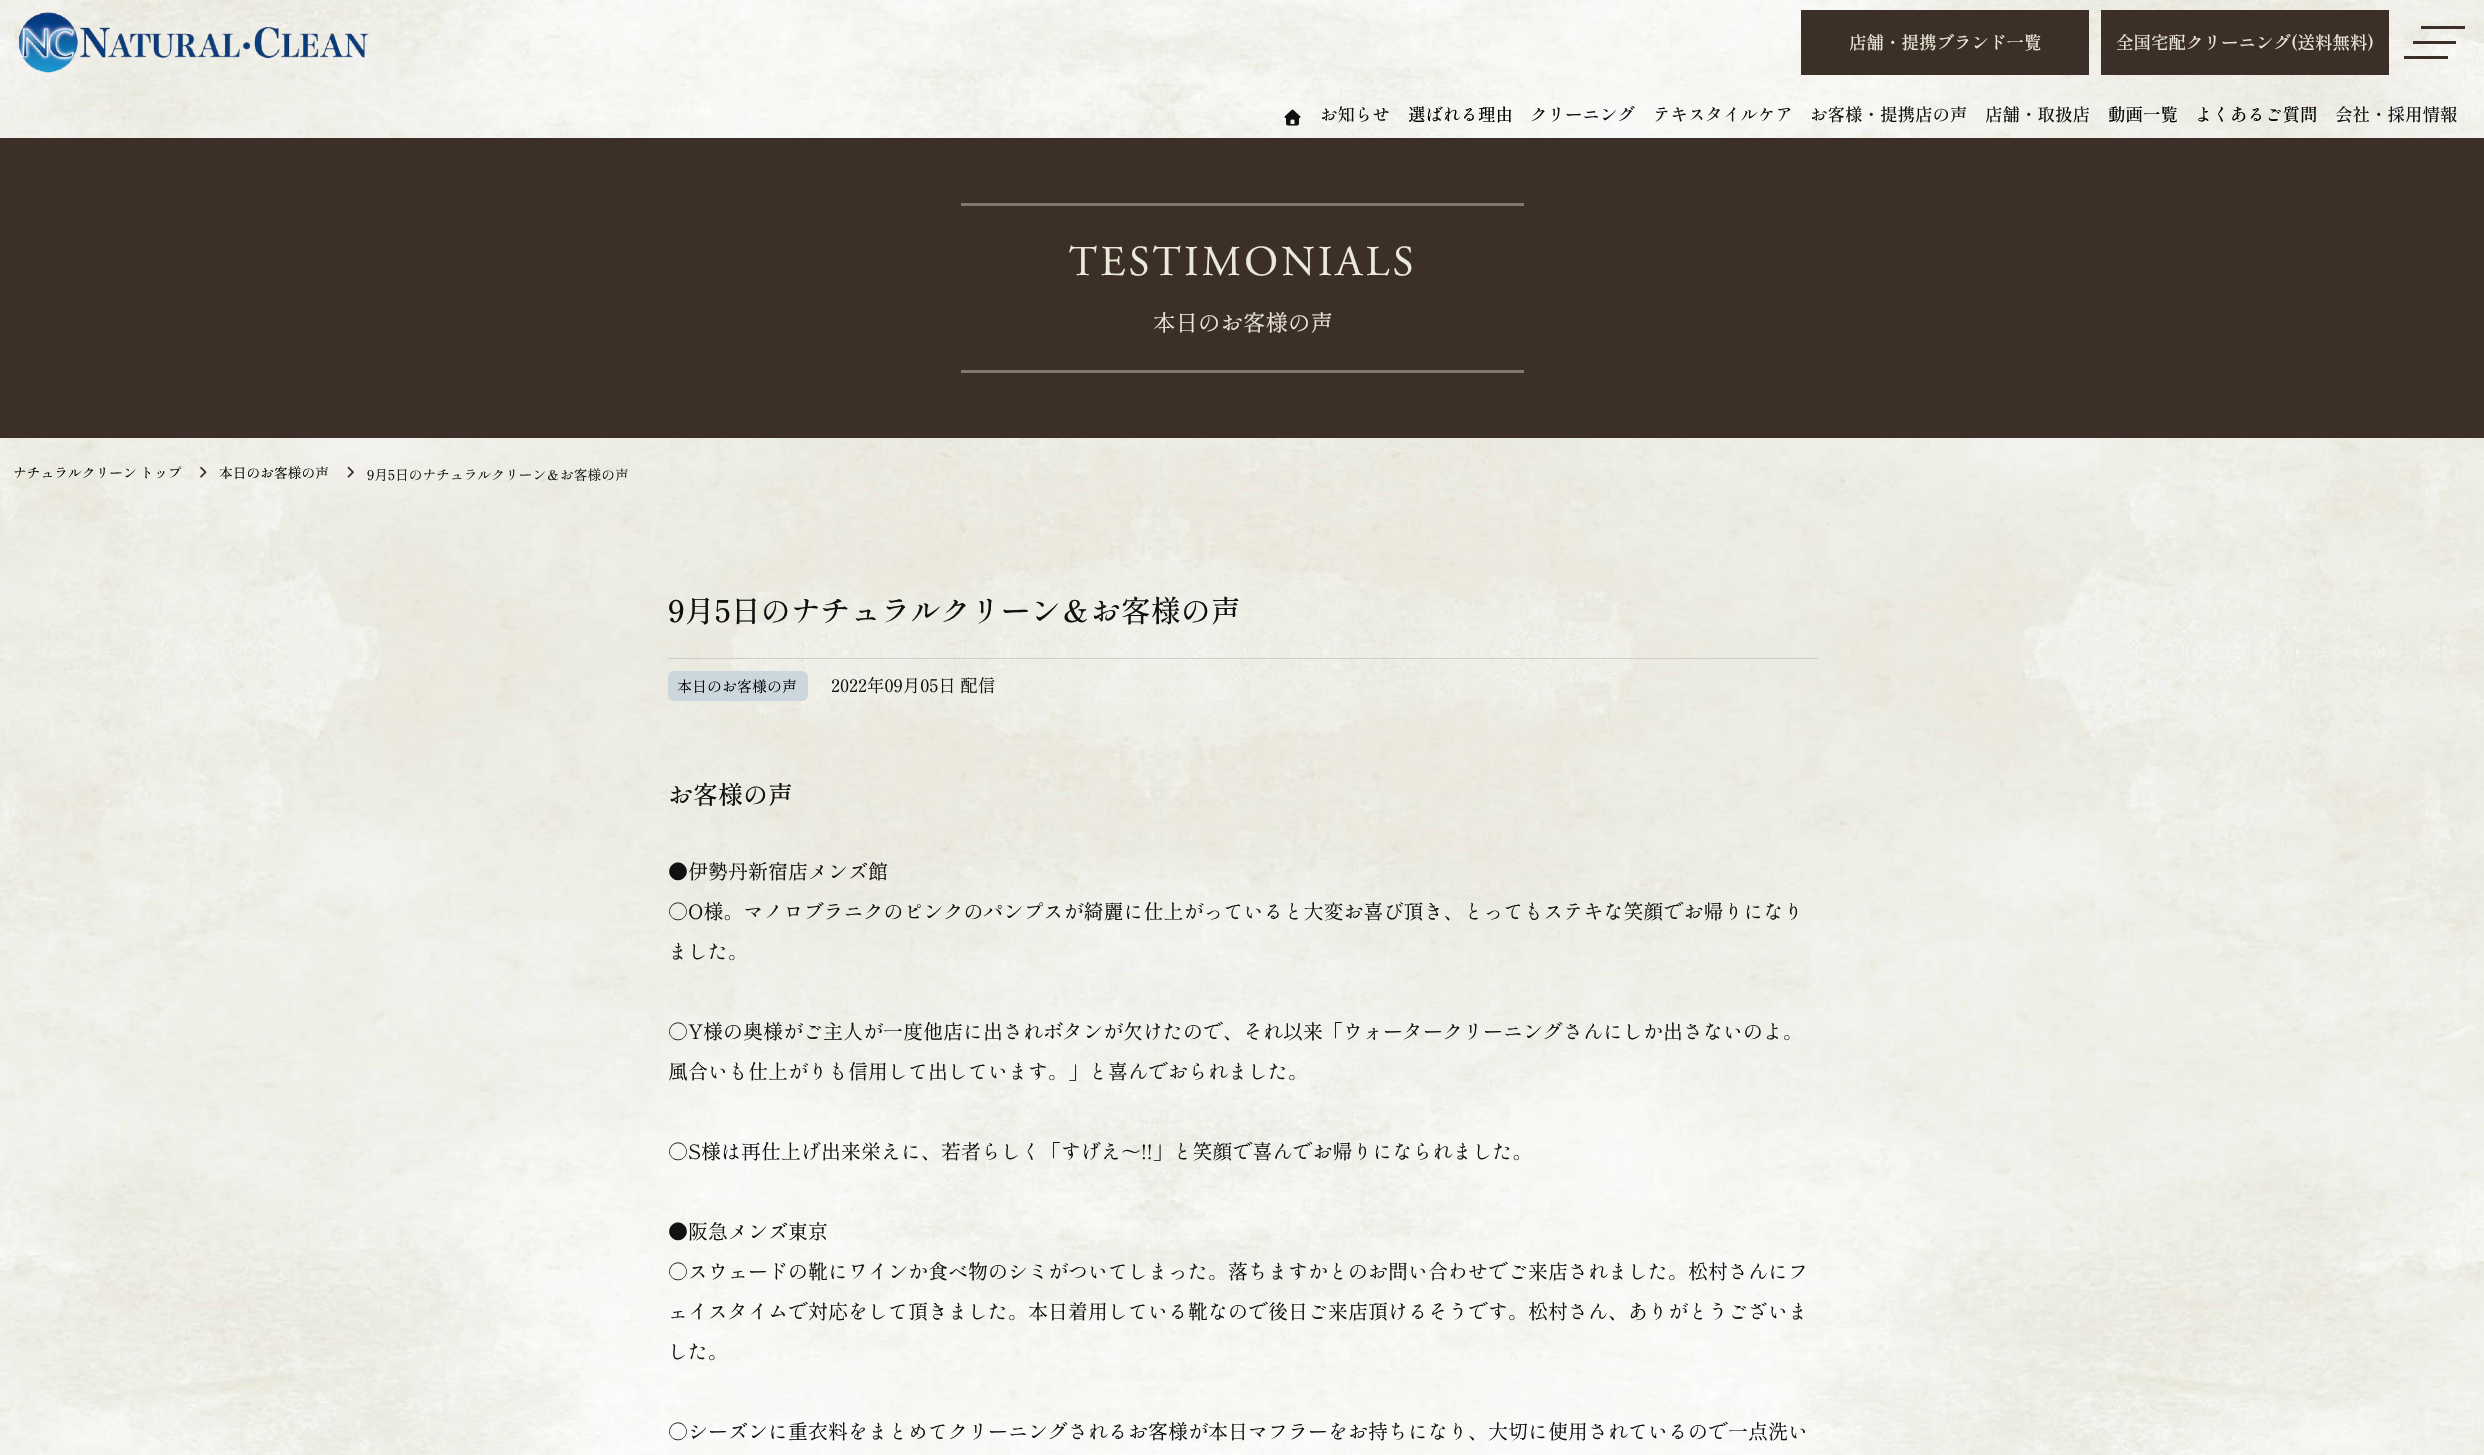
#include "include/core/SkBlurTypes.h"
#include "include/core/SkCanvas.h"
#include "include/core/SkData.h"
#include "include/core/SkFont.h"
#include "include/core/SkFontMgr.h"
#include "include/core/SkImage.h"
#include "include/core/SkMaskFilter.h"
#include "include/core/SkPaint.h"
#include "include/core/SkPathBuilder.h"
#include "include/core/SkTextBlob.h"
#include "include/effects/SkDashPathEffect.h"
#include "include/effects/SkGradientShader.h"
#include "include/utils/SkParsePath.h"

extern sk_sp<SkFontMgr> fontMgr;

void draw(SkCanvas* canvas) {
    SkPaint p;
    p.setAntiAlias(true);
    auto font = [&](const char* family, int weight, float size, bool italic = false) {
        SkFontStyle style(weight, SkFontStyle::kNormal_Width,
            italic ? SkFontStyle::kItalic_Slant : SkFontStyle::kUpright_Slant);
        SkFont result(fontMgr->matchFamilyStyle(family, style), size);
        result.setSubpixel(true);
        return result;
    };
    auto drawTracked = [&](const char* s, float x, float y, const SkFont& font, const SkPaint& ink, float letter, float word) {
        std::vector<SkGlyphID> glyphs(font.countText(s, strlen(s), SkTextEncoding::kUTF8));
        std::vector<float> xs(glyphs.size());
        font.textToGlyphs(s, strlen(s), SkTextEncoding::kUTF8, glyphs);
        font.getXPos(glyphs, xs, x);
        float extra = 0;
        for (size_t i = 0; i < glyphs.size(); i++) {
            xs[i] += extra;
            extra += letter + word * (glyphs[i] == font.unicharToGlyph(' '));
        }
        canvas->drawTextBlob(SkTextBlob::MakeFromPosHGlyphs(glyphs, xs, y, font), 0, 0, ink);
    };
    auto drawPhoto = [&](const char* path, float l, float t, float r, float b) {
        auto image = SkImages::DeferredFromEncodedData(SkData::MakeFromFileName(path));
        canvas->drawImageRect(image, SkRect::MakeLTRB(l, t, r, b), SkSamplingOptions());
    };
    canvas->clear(0xFFFFFFFF);
    drawPhoto("media/1.png", 0, 0, 2484, 1455);
    drawPhoto("media/2.png", 1141, 137, 1870, 138);
    drawPhoto("media/3.png", 19, 12, 369, 73);
    p.setColor(0xFF3B2F27);
    canvas->drawRect(SkRect::MakeLTRB(1801, 10, 2089, 75), p);
    auto font1 = font("Shippori Mincho", 500, 17.5f);
    p.setColor(0xFFEBE9D7);
    canvas->drawString("店舗・提携ブランド一覧", 1849, 49, font1, p);
    p.setColor(0xFF3B2F27);
    canvas->drawRect(SkRect::MakeLTRB(2101, 10, 2389, 75), p);
    p.setColor(0xFFEBE9D7);
    canvas->drawString("全国宅配クリーニング(送料無料)", 2116, 49, font1, p);
    {
        const struct { float l, t, r, b; SkColor color; } items[] = {
            {2421, 26, 2465, 29, 0xFF3B2F27},
            {2413, 41, 2456, 44, 0xFF3B2F27},
            {2404, 56, 2448, 59, 0xFF3B2F27},
        };
        for (auto [l, t, r, b, color] : items) {
            p.setColor(color);
            canvas->drawRect(SkRect::MakeLTRB(l, t, r, b), p);
        }
    }
    drawPhoto("media/4.png", 1284, 109, 1301, 126);
    p.setColor(0xFF111111);
    canvas->drawString("お知らせ", 1320, 121, font1, p);
    p.setColor(0xFF000000);
    canvas->drawString("選ばれる理由", 1408, 121, font1, p);
    p.setColor(0xFF111111);
    {
        const struct { const char* s; float x, y; } items[] = {
            {"クリーニング", 1530, 121},
            {"テキスタイルケア", 1653, 121},
            {"お客様・提携店の声", 1810, 121},
            {"店舗・取扱店", 1985, 121},
        };
        for (auto [s, x, y] : items) {
            canvas->drawString(s, x, y, font1, p);
        }
    }
    p.setColor(0xFF000000);
    canvas->drawString("動画一覧", 2108, 121, font1, p);
    canvas->drawString("よくあるご質問", 2195, 121, font1, p);
    p.setColor(0xFF111111);
    canvas->drawString("会社・採用情報", 2335, 121, font1, p);
    {
        const struct { float l, t, r, b; SkColor color; } items[] = {
            {0, 138, 2484, 438, 0xFF3B2F27},
            {961, 203, 1524, 206, 0xFF81796D},
            {961, 370, 1524, 373, 0xFF81796D},
        };
        for (auto [l, t, r, b, color] : items) {
            p.setColor(color);
            canvas->drawRect(SkRect::MakeLTRB(l, t, r, b), p);
        }
    }
    auto font2 = font("Adobe Garamond", 400, 42.5f);
    p.setColor(0xFFEBE9D7);
    drawTracked("TESTIMONIALS", 1069, 275, font2, p, 3.4f, 0);
    auto font3 = font("Shippori Mincho", 400, 22.5f);
    canvas->drawString("本日のお客様の声", 1153, 331, font3, p);
    auto font4 = font("Shippori Mincho", 400, 13.75f);
    p.setColor(0xFF000000);
    canvas->drawString("ナチュラルクリーン トップ", 13, 478, font4, p);
    drawPhoto("media/5.png", 200, 466, 207, 478);
    canvas->drawString("本日のお客様の声", 219, 478, font4, p);
    drawPhoto("media/6.png", 347, 466, 354, 478);
    p.setColor(0xFF111111);
    canvas->drawString("9月5日のナチュラルクリーン＆お客様の声", 367, 480, font4, p);
    p.setColor(0xFFCFCECA);
    canvas->drawRect(SkRect::MakeLTRB(668, 658, 1818, 659), p);
    auto font5 = font("Shippori Mincho", 500, 30);
    p.setColor(0xFF111111);
    canvas->drawString("9月5日のナチュラルクリーン＆お客様の声", 668, 622, font5, p);
    p.setColor(0xFFCCD6DD);
    canvas->drawRoundRect(SkRect::MakeLTRB(668, 671, 808, 701), 6, 6, p);
    auto font6 = font("Shippori Mincho", 400, 15);
    p.setColor(0xFF000000);
    canvas->drawString("本日のお客様の声", 677, 692, font6, p);
    auto font7 = font("Shippori Mincho", 400, 17.5f);
    p.setColor(0xFF111111);
    canvas->drawString("2022年09月05日 配信", 831, 692, font7, p);
    auto font8 = font("Shippori Mincho", 500, 25);
    canvas->drawString("お客様の声", 668, 804, font8, p);
    auto font9 = font("Shippori Mincho", 400, 20);
    {
        const struct { const char* s; float x, y; } items[] = {
            {"●伊勢丹新宿店メンズ館", 668, 879},
            {"○O様。マノロブラニクのピンクのパンプスが綺麗に仕上がっていると大変お喜び頂き、とってもステキな笑顔でお帰りになり", 668, 919},
            {"ました。", 668, 959},
            {"○Y様の奥様がご主人が一度他店に出されボタンが欠けたので、それ以来「ウォータークリーニングさんにしか出さないのよ。", 668, 1039},
            {"風合いも仕上がりも信用して出しています。」と喜んでおられました。", 668, 1079},
            {"○S様は再仕上げ出来栄えに、若者らしく「すげえ～!!」と笑顔で喜んでお帰りになられました。", 668, 1159},
            {"●阪急メンズ東京", 668, 1239},
            {"○スウェードの靴にワインか食べ物のシミがついてしまった。落ちますかとのお問い合わせでご来店されました。松村さんにフ", 668, 1279},
            {"ェイスタイムで対応をして頂きました。本日着用している靴なので後日ご来店頂けるそうです。松村さん、ありがとうございま", 668, 1319},
            {"した。", 668, 1359},
            {"○シーズンに重衣料をまとめてクリーニングされるお客様が本日マフラーをお持ちになり、大切に使用されているので一点洗い", 668, 1439},
        };
        for (auto [s, x, y] : items) {
            canvas->drawString(s, x, y, font9, p);
        }
    }
}
